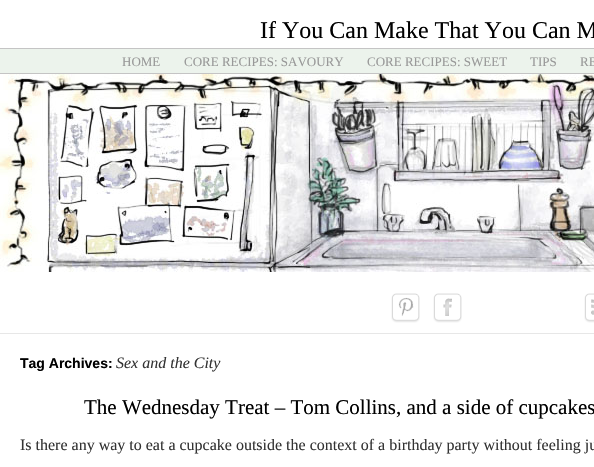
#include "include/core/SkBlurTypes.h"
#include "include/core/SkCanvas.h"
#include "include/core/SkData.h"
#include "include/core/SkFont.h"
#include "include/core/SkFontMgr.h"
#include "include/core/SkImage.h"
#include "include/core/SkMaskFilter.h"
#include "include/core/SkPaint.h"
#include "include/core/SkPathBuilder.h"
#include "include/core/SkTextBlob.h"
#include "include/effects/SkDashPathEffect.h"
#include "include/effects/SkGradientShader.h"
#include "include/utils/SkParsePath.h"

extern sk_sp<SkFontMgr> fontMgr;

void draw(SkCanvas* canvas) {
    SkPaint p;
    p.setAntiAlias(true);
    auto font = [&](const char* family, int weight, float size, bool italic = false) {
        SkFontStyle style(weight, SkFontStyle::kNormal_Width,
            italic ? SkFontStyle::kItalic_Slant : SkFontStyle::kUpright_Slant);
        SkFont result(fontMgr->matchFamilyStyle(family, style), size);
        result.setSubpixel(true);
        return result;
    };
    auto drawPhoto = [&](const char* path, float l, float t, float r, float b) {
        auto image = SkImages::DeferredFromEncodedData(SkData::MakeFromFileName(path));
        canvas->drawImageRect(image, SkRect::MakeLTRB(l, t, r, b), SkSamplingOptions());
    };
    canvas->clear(0xFFFFFFFF);
    auto font1 = font("Liberation Serif", 400, 24);
    p.setColor(0xFF000000);
    canvas->drawString("If You Can Make That You Can M", 260, 38, font1, p);
    {
        const struct { float l, t, r, b; SkColor color; } items[] = {
            {0, 49, 594, 73, 0xFFECF3EC},
            {0, 48, 594, 49, 0xFFC4C4C4},
            {0, 73, 594, 74, 0xFFC4C4C4},
        };
        for (auto [l, t, r, b, color] : items) {
            p.setColor(color);
            canvas->drawRect(SkRect::MakeLTRB(l, t, r, b), p);
        }
    }
    auto font2 = font("Liberation Serif", 400, 13);
    p.setColor(0xFF999999);
    {
        const struct { const char* s; float x, y; } items[] = {
            {"HOME", 122, 66},
            {"CORE RECIPES: SAVOURY", 184, 66},
            {"CORE RECIPES: SWEET", 367, 66},
            {"TIPS", 530, 66},
            {"RE", 580, 66},
        };
        for (auto [s, x, y] : items) {
            canvas->drawString(s, x, y, font2, p);
        }
    }
    drawPhoto("media/1.png", 0, 74, 594, 272);
    drawPhoto("media/2.png", 391, 293, 420, 323);
    drawPhoto("media/3.png", 433, 293, 462, 323);
    drawPhoto("media/4.png", 584, 293, 594, 323);
    p.setColor(0xFFE7E7E7);
    canvas->drawRect(SkRect::MakeLTRB(0, 333, 594, 334), p);
    auto font3 = font("Liberation Sans", 700, 14);
    p.setColor(0xFF000000);
    canvas->drawString("Tag Archives:", 20, 368, font3, p);
    auto font4 = font("Liberation Serif", 400, 16, true);
    p.setColor(0xFF333333);
    canvas->drawString("Sex and the City", 116, 368, font4, p);
    auto font5 = font("Liberation Serif", 400, 21);
    p.setColor(0xFF000000);
    canvas->drawString("The Wednesday Treat – Tom Collins, and a side of cupcakes", 84, 414, font5, p);
    auto font6 = font("Liberation Serif", 400, 16);
    p.setColor(0xFF333333);
    canvas->drawString("Is there any way to eat a cupcake outside the context of a birthday party without feeling ju", 20, 450, font6, p);
}
